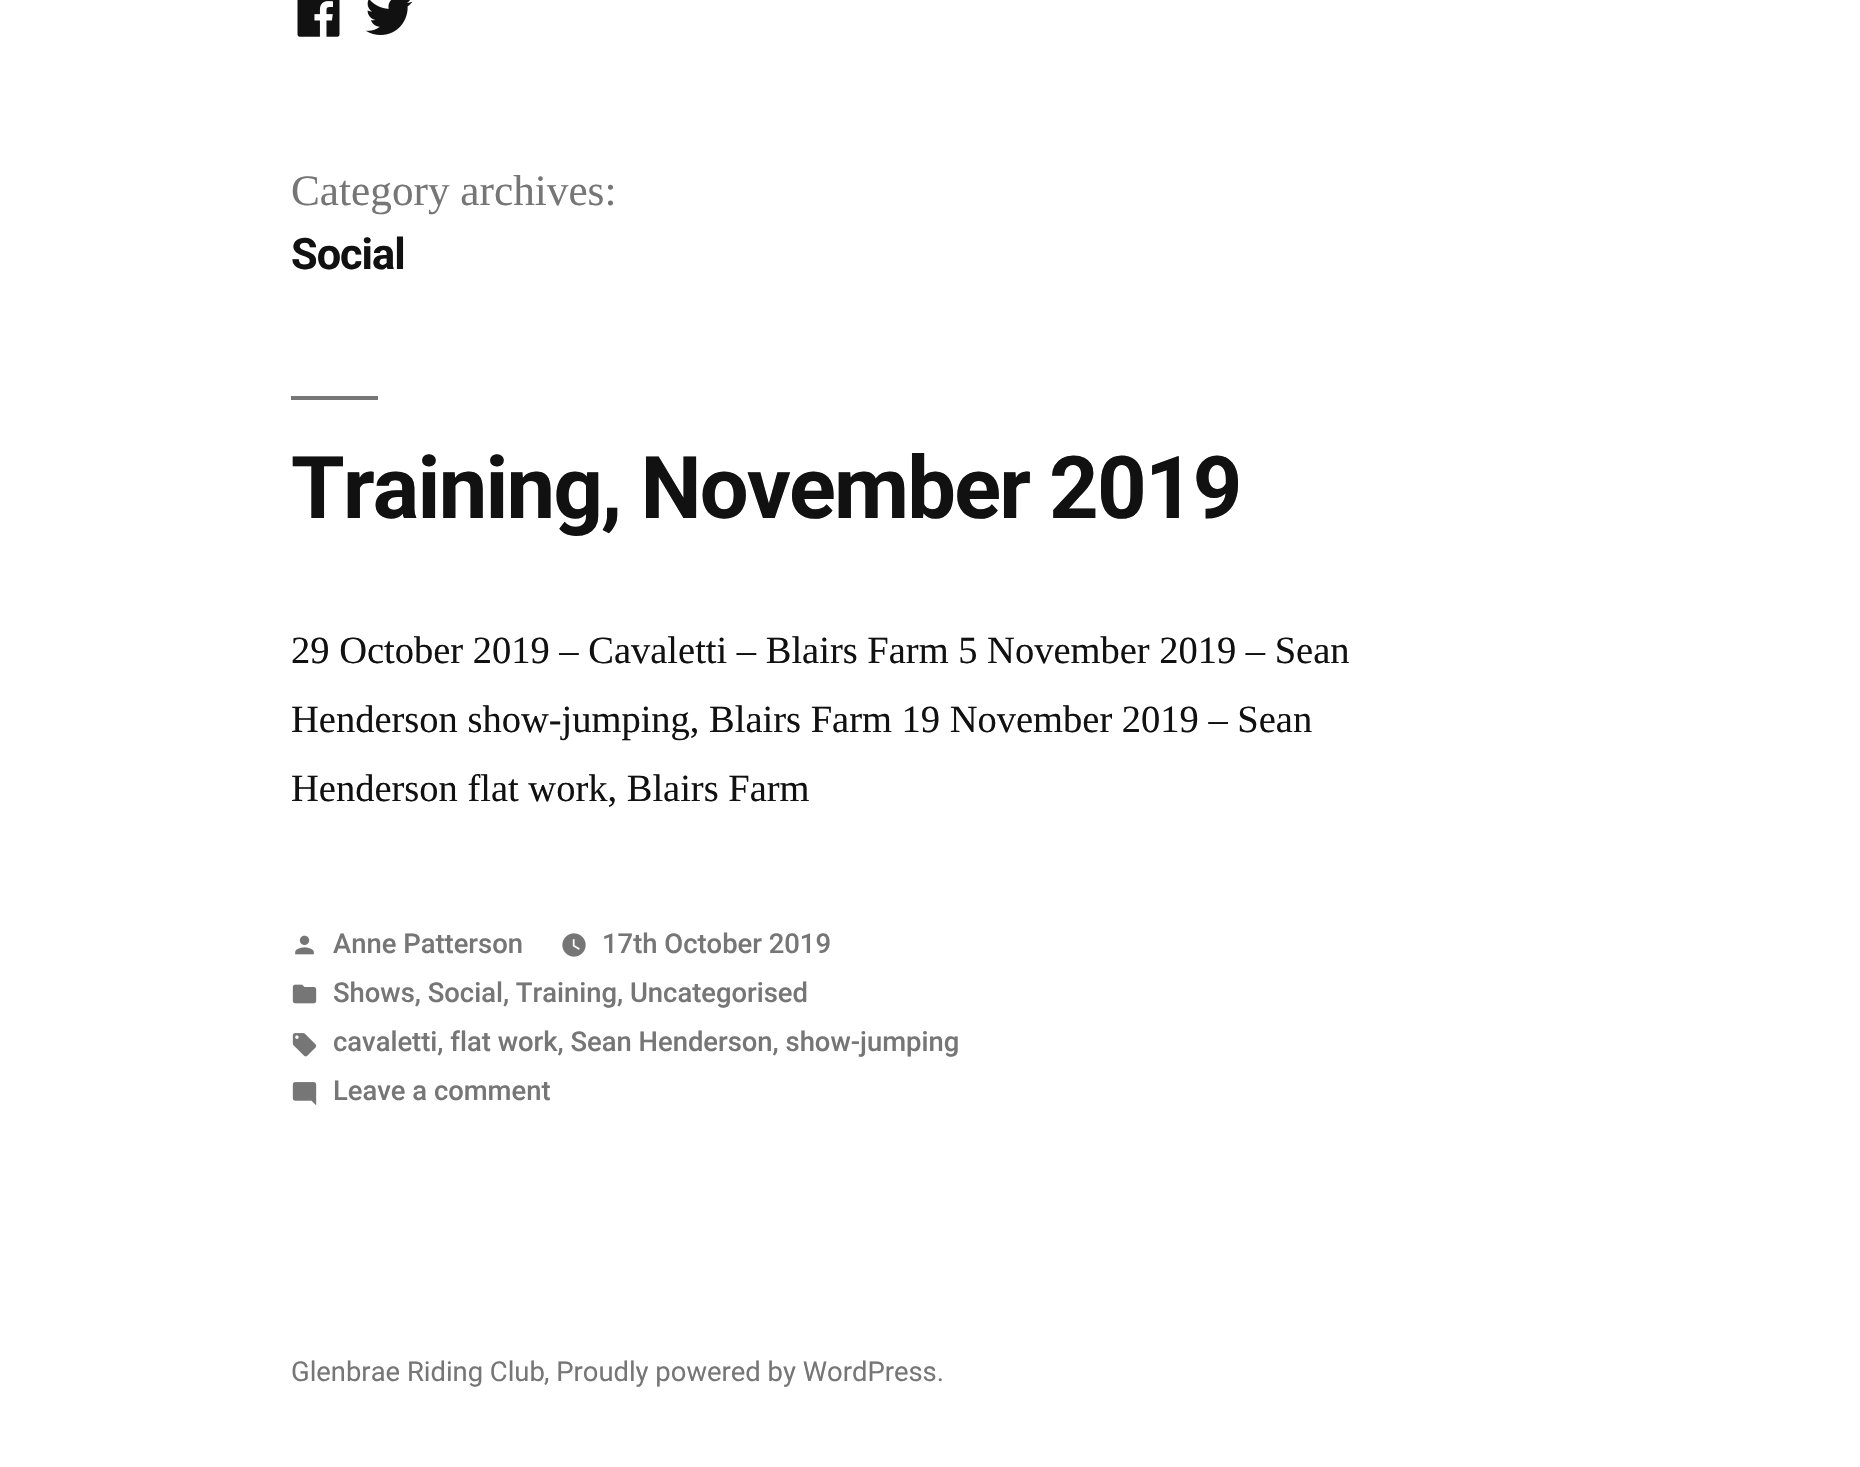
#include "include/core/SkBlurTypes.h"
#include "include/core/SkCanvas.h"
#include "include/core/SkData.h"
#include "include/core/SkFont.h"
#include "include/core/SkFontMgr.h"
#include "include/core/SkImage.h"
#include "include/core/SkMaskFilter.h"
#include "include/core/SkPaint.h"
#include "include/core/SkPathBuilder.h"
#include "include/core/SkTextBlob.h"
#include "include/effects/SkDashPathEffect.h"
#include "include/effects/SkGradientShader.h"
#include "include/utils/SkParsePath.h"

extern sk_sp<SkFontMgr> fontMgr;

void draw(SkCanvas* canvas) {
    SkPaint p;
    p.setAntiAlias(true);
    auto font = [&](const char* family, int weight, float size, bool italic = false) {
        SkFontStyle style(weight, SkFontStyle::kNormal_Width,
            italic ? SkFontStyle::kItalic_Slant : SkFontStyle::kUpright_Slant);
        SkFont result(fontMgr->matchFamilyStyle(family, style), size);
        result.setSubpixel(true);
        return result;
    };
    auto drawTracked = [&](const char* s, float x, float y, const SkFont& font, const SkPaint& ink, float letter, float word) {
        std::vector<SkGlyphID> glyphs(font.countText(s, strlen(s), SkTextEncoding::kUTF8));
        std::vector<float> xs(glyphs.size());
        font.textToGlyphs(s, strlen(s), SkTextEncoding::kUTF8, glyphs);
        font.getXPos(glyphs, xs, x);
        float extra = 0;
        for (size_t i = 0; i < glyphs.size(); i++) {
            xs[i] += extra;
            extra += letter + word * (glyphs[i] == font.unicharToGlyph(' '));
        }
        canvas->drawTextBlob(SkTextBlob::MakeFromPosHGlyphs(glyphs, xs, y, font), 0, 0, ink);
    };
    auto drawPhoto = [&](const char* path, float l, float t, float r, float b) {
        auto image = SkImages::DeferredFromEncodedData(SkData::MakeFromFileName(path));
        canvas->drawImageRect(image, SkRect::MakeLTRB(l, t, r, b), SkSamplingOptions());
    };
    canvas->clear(0xFFFFFFFF);
    drawPhoto("media/1.png", 297, 0, 340, 37);
    drawPhoto("media/2.png", 366, 0, 413, 35);
    auto font1 = font("Liberation Serif", 400, 43.25f);
    p.setColor(0xFF767676);
    canvas->drawString("Category archives:", 291, 205, font1, p);
    auto font2 = font("Roboto", 700, 43.25f);
    p.setColor(0xFF111111);
    drawTracked("Social", 291, 269, font2, p, -1, 0);
    p.setColor(0xFF767676);
    canvas->drawRect(SkRect::MakeLTRB(291, 396, 378, 400), p);
    auto font3 = font("Roboto", 700, 86.6f);
    p.setColor(0xFF111111);
    drawTracked("Training, November 2019", 291, 518, font3, p, -1.75f, 0);
    auto font4 = font("Liberation Serif", 400, 38.5f);
    {
        const struct { const char* s; float x, y; } items[] = {
            {"29 October 2019 – Cavaletti – Blairs Farm 5 November 2019 – Sean", 291, 663},
            {"Henderson show-jumping, Blairs Farm 19 November 2019 – Sean", 291, 732},
            {"Henderson flat work, Blairs Farm", 291, 801},
        };
        for (auto [s, x, y] : items) {
            canvas->drawString(s, x, y, font4, p);
        }
    }
    drawPhoto("media/3.png", 295, 935, 314, 955);
    auto font5 = font("Roboto", 500, 27.4f);
    p.setColor(0xFF767676);
    canvas->drawString("Anne Patterson", 333, 953, font5, p);
    drawPhoto("media/4.png", 562, 933, 586, 957);
    canvas->drawString("17th October 2019", 602, 953, font5, p);
    drawPhoto("media/5.png", 292, 984, 317, 1004);
    canvas->drawString("Shows, Social, Training, Uncategorised", 333, 1002, font5, p);
    drawPhoto("media/6.png", 292, 1033, 317, 1057);
    canvas->drawString("cavaletti, flat work, Sean Henderson, show-jumping", 333, 1051, font5, p);
    drawPhoto("media/7.png", 292, 1082, 317, 1106);
    canvas->drawString("Leave a comment", 333, 1100, font5, p);
    auto font6 = font("Roboto", 400, 27.4f);
    canvas->drawString("Glenbrae Riding Club", 291, 1381, font6, p);
    canvas->drawString(", Proudly powered by WordPress.", 544, 1381, font6, p);
}
